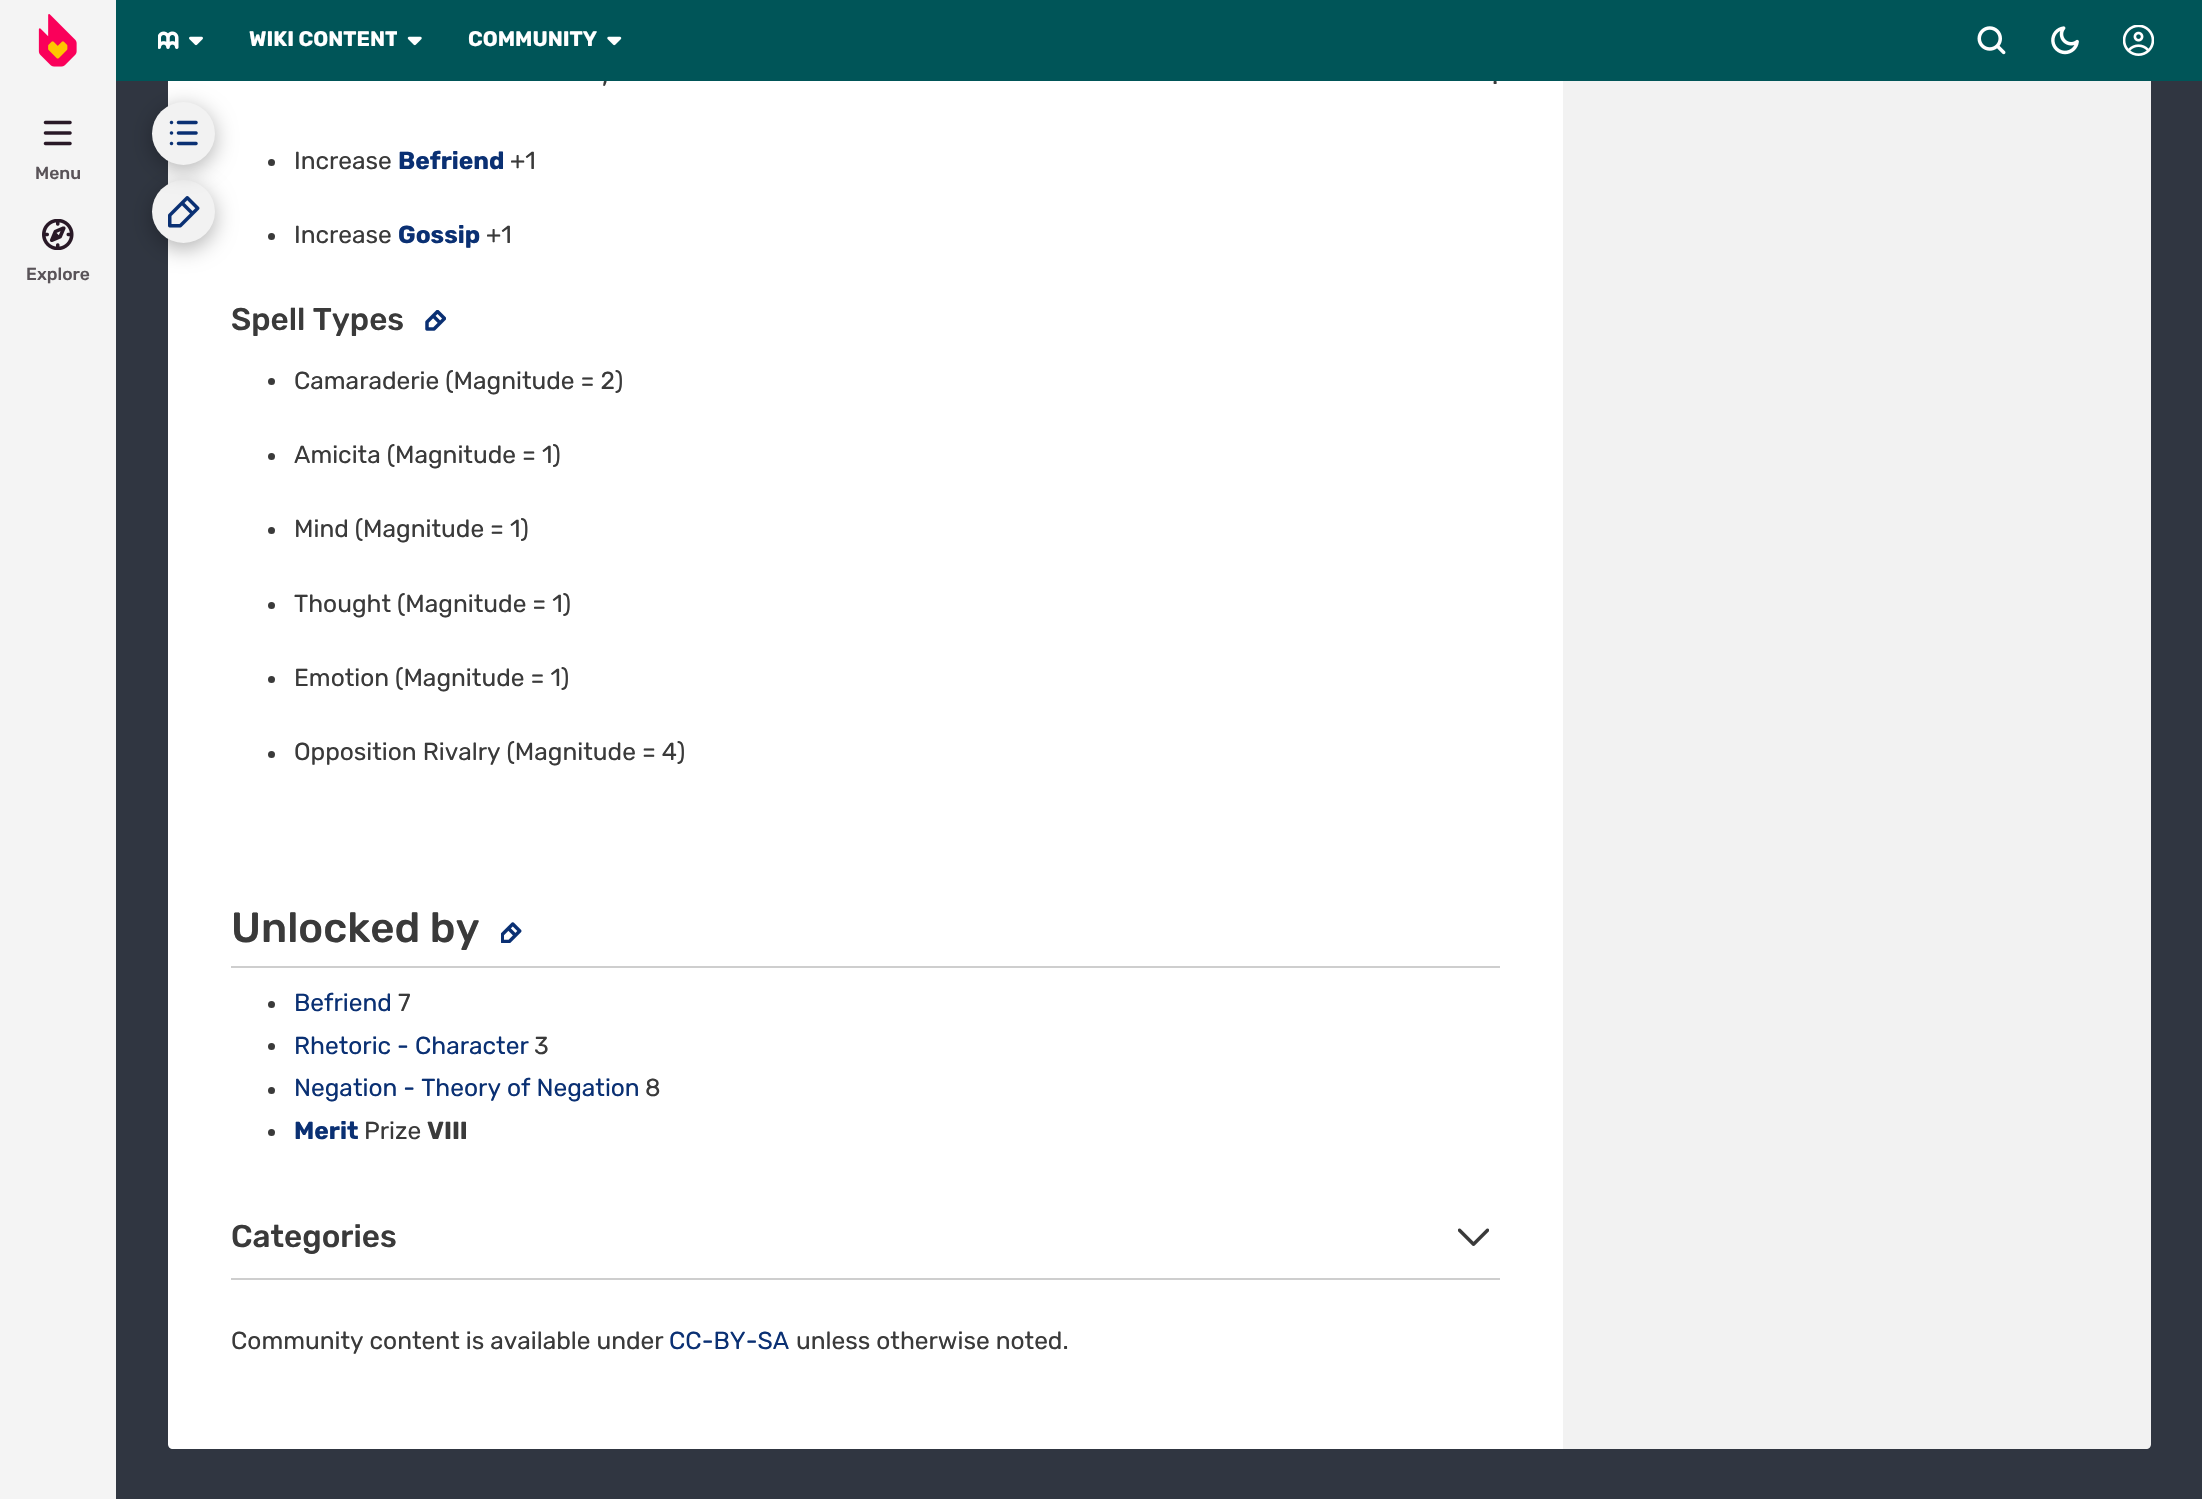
#include "include/core/SkBlurTypes.h"
#include "include/core/SkCanvas.h"
#include "include/core/SkData.h"
#include "include/core/SkFont.h"
#include "include/core/SkFontMgr.h"
#include "include/core/SkImage.h"
#include "include/core/SkMaskFilter.h"
#include "include/core/SkPaint.h"
#include "include/core/SkPathBuilder.h"
#include "include/core/SkTextBlob.h"
#include "include/effects/SkDashPathEffect.h"
#include "include/effects/SkGradientShader.h"
#include "include/utils/SkParsePath.h"

extern sk_sp<SkFontMgr> fontMgr;

void draw(SkCanvas* canvas) {
    SkPaint p;
    p.setAntiAlias(true);
    auto font = [&](const char* family, int weight, float size, bool italic = false) {
        SkFontStyle style(weight, SkFontStyle::kNormal_Width,
            italic ? SkFontStyle::kItalic_Slant : SkFontStyle::kUpright_Slant);
        SkFont result(fontMgr->matchFamilyStyle(family, style), size);
        result.setSubpixel(true);
        return result;
    };
    auto drawPhoto = [&](const char* path, float l, float t, float r, float b) {
        auto image = SkImages::DeferredFromEncodedData(SkData::MakeFromFileName(path));
        canvas->drawImageRect(image, SkRect::MakeLTRB(l, t, r, b), SkSamplingOptions());
    };
    canvas->clear(0xFF303641);
    p.setColor(0xFFFFFFFF);
    canvas->drawPath(SkPathBuilder().moveTo(173, -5).lineTo(1563, -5).lineTo(1563, 1449).lineTo(173, 1449).cubicTo(170, 1449, 168, 1447, 168, 1444).lineTo(168, 0).cubicTo(168, -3, 170, -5, 173, -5).close().detach(), p);
    p.setColor(0x4D000000);
    p.setMaskFilter(SkMaskFilter::MakeBlur(kNormal_SkBlurStyle, 10.5f));
    canvas->drawRoundRect(SkRect::MakeLTRB(152, 186, 215, 249), 31.5f, 31.5f, p);
    p.setMaskFilter(nullptr);
    p.setColor(0xFFF2F2F2);
    canvas->drawCircle(183.5f, 211.5f, 31.5f, p);
    drawPhoto("media/12.png", 168, 196, 200, 228);
    p.setColor(0x4D000000);
    p.setMaskFilter(SkMaskFilter::MakeBlur(kNormal_SkBlurStyle, 10.5f));
    canvas->drawRoundRect(SkRect::MakeLTRB(152, 107, 215, 170), 31.5f, 31.5f, p);
    p.setMaskFilter(nullptr);
    p.setColor(0xFFF2F2F2);
    canvas->drawPath(SkPathBuilder().moveTo(1563, -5).lineTo(2146, -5).cubicTo(2149, -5, 2151, -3, 2151, 0).lineTo(2151, 1444).cubicTo(2151, 1447, 2149, 1449, 2146, 1449).lineTo(1563, 1449).close().detach(), p);
    p.setColor(0xFF005558);
    canvas->drawRect(SkRect::MakeLTRB(116, 0, 2202, 81), p);
    p.setColor(0xFFF4F4F4);
    canvas->drawRect(SkRect::MakeLTRB(0, 0, 116, 1499), p);
    drawPhoto("media/1.png", 38, 14, 77, 67);
    drawPhoto("media/2.png", 158, 31, 179, 49);
    drawPhoto("media/3.png", 189, 36, 203, 46);
    canvas->save();
    canvas->clipRect(SkRect::MakeLTRB(249, 28, 397, 54));
    auto font1 = font("Rubik", 700, 21);
    p.setColor(0xFFFFFFFF);
    canvas->drawString("WIKI CONTENT", 249, 46, font1, p);
    canvas->restore();
    drawPhoto("media/4.png", 407, 36, 422, 46);
    canvas->drawString("COMMUNITY", 468, 46, font1, p);
    drawPhoto("media/5.png", 607, 36, 622, 46);
    drawPhoto("media/6.png", 1977, 26, 2006, 55);
    drawPhoto("media/7.png", 2051, 26, 2079, 55);
    drawPhoto("media/8.png", 2123, 25, 2154, 56);
    drawPhoto("media/9.png", 43, 120, 72, 146);
    auto font2 = font("Rubik", 500, 17.5f);
    p.setColor(0xFF595358);
    canvas->drawString("Menu", 35, 179, font2, p);
    drawPhoto("media/10.png", 42, 219, 74, 250);
    canvas->drawString("Explore", 26, 280, font2, p);
    p.setColor(0xFFF2F2F2);
    canvas->drawCircle(183.5f, 133.5f, 31.5f, p);
    drawPhoto("media/11.png", 169, 120, 198, 146);
    auto font3 = font("Rubik", 400, 24.5f);
    p.setColor(0xFF3A3A3A);
    canvas->drawString(",", 602, 84, font3, p);
    canvas->drawString(".", 1492, 84, font3, p);
    canvas->drawCircle(271.5f, 162.5f, 3.5f, p);
    canvas->drawString("Increase", 294, 169, font3, p);
    auto font4 = font("Rubik", 700, 24.5f);
    p.setColor(0xFF0A3073);
    canvas->drawString("Befriend", 398, 169, font4, p);
    p.setColor(0xFF3A3A3A);
    canvas->drawString("+1", 510, 169, font3, p);
    canvas->drawCircle(271.5f, 236.5f, 3.5f, p);
    canvas->drawString("Increase", 294, 243, font3, p);
    p.setColor(0xFF0A3073);
    canvas->drawString("Gossip", 398, 243, font4, p);
    p.setColor(0xFF3A3A3A);
    canvas->drawString("+1", 486, 243, font3, p);
    auto font5 = font("Rubik", 500, 31.5f);
    canvas->drawString("Spell Types", 231, 330, font5, p);
    drawPhoto("media/13.png", 425, 310, 446, 331);
    canvas->drawCircle(271.5f, 381.5f, 3.5f, p);
    canvas->drawString("Camaraderie (Magnitude = 2)", 294, 389, font3, p);
    canvas->drawCircle(271.5f, 456.5f, 3.5f, p);
    canvas->drawString("Amicita (Magnitude = 1)", 294, 463, font3, p);
    canvas->drawCircle(271.5f, 530.5f, 3.5f, p);
    canvas->drawString("Mind (Magnitude = 1)", 294, 537, font3, p);
    canvas->drawCircle(271.5f, 605.5f, 3.5f, p);
    canvas->drawString("Thought (Magnitude = 1)", 294, 612, font3, p);
    canvas->drawCircle(271.5f, 679.5f, 3.5f, p);
    canvas->drawString("Emotion (Magnitude = 1)", 294, 686, font3, p);
    canvas->drawCircle(271.5f, 754.5f, 3.5f, p);
    canvas->drawString("Opposition Rivalry (Magnitude = 4)", 294, 760, font3, p);
    p.setColor(0xFFCECECE);
    canvas->drawRect(SkRect::MakeLTRB(231, 966, 1500, 968), p);
    auto font6 = font("Rubik", 500, 42);
    p.setColor(0xFF3A3A3A);
    canvas->drawString("Unlocked by", 231, 942, font6, p);
    drawPhoto("media/14.png", 501, 922, 522, 943);
    canvas->drawCircle(271.5f, 1004.5f, 3.5f, p);
    p.setColor(0xFF0A3073);
    canvas->drawString("Befriend", 294, 1011, font3, p);
    p.setColor(0xFF3A3A3A);
    canvas->drawString("7", 398, 1011, font3, p);
    canvas->drawCircle(271.5f, 1046.5f, 3.5f, p);
    p.setColor(0xFF0A3073);
    canvas->drawString("Rhetoric - Character", 294, 1054, font3, p);
    p.setColor(0xFF3A3A3A);
    canvas->drawString("3", 534, 1054, font3, p);
    canvas->drawCircle(271.5f, 1090.5f, 3.5f, p);
    p.setColor(0xFF0A3073);
    canvas->drawString("Negation - Theory of Negation", 294, 1096, font3, p);
    p.setColor(0xFF3A3A3A);
    canvas->drawString("8", 645, 1096, font3, p);
    canvas->drawCircle(271.5f, 1132.5f, 3.5f, p);
    p.setColor(0xFF0A3073);
    canvas->drawString("Merit", 294, 1139, font4, p);
    p.setColor(0xFF3A3A3A);
    canvas->drawString("Prize", 364, 1139, font3, p);
    canvas->drawString("VIII", 427, 1139, font4, p);
    p.setColor(0xFFCECECE);
    canvas->drawRect(SkRect::MakeLTRB(231, 1278, 1500, 1280), p);
    p.setColor(0xFF3A3A3A);
    canvas->drawString("Categories", 231, 1247, font5, p);
    drawPhoto("media/15.png", 1458, 1228, 1489, 1246);
    canvas->drawString("Community content is available under", 231, 1349, font3, p);
    p.setColor(0xFF0A3073);
    canvas->drawString("CC-BY-SA", 669, 1349, font3, p);
    p.setColor(0xFF3A3A3A);
    canvas->drawString("unless otherwise noted.", 796, 1349, font3, p);
}
